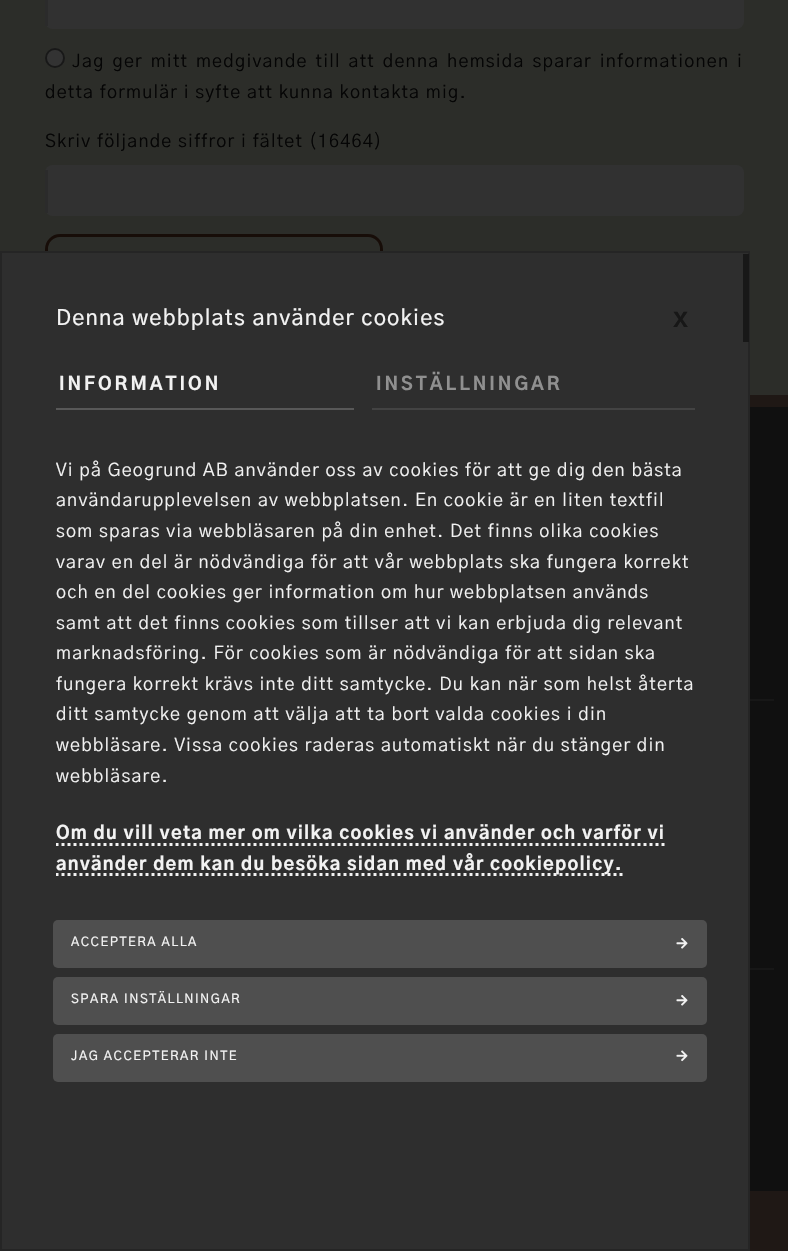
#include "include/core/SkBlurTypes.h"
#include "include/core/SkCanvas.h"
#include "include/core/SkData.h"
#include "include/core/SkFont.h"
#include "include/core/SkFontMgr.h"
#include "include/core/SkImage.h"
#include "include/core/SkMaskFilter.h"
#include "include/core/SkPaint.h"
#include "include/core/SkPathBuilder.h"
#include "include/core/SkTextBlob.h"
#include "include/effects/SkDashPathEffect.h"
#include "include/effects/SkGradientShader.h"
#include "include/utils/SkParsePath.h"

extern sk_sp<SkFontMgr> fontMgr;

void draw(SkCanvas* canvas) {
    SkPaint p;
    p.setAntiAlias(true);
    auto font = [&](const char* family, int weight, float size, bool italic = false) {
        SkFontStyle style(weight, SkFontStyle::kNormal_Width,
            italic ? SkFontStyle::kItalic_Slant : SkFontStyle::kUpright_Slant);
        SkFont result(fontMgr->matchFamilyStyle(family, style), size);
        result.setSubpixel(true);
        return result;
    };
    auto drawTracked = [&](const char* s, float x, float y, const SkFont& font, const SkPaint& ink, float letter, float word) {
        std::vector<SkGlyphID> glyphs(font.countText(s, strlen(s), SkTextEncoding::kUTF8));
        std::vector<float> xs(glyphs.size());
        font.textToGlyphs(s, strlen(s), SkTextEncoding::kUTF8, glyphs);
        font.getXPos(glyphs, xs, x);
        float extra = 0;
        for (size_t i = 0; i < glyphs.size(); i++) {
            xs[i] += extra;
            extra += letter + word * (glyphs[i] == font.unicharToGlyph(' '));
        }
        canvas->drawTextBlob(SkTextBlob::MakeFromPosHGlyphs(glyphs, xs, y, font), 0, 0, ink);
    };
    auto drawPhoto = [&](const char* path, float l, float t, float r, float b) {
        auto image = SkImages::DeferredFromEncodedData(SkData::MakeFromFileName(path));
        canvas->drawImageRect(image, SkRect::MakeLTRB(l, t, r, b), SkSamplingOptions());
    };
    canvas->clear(0xFF101010);
    p.setColor(0xFF2C2D29);
    canvas->drawRect(SkRect::MakeLTRB(0, 0, 788, 395), p);
    p.setColor(0xFF313131);
    canvas->drawRoundRect(SkRect::MakeLTRB(45, -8, 744, 29), 8, 8, p);
    p.setColor(0xFF2B2B2B);
    canvas->drawRect(SkRect::MakeLTRB(45, 0, 48, 26), p);
    p.setColor(0xFF333333);
    canvas->drawCircle(55, 58, 9, p);
    p.setStyle(SkPaint::kStroke_Style);
    p.setStrokeWidth(2);
    p.setColor(0xFF181818);
    canvas->drawCircle(55, 58, 9, p);
    auto font1 = font("Gothic A1", 400, 18);
    p.setStyle(SkPaint::kFill_Style);
    p.setColor(0xFF050505);
    drawTracked("Jag ger mitt medgivande till att denna hemsida sparar informationen i", 72, 67, font1, p, 1.2f, 2.25f);
    drawTracked("detta formulär i syfte att kunna kontakta mig.", 45, 98, font1, p, 1.2f, 0);
    drawTracked("Skriv följande siffror i fältet (16464)", 45, 147, font1, p, 1.2f, 0);
    p.setColor(0xFF313131);
    canvas->drawRoundRect(SkRect::MakeLTRB(45, 165, 744, 216), 8, 8, p);
    p.setColor(0xFF2B2B2B);
    canvas->drawRect(SkRect::MakeLTRB(45, 170, 48, 213), p);
    p.setStyle(SkPaint::kStroke_Style);
    p.setStrokeWidth(3);
    p.setColor(0xFF170D08);
    canvas->drawRoundRect(SkRect::MakeLTRB(46.5f, 235.5f, 381.5f, 294.5f), 13.5f, 13.5f, p);
    p.setStyle(SkPaint::kFill_Style);
    p.setColor(0xFF2E2E2E);
    canvas->drawRect(SkRect::MakeLTRB(1, 252, 749, 1250), p);
    p.setStyle(SkPaint::kStroke_Style);
    p.setStrokeWidth(2);
    p.setColor(0xFF252525);
    canvas->drawRect(SkRect::MakeLTRB(1, 252, 749, 1250), p);
    p.setStyle(SkPaint::kFill_Style);
    p.setColor(0xFF181818);
    canvas->drawRect(SkRect::MakeLTRB(743, 254, 749, 342), p);
    auto font2 = font("Gothic A1", 500, 21.6f);
    p.setColor(0xFFF2F2F2);
    drawTracked("Denna webbplats använder cookies", 56, 325, font2, p, 1.2f, 0);
    auto font3 = font("Gothic A1", 700, 27);
    p.setColor(0xFF171717);
    canvas->drawString("x", 673, 327, font3, p);
    p.setColor(0xFF585858);
    canvas->drawRect(SkRect::MakeLTRB(56, 408, 354, 410), p);
    auto font4 = font("Gothic A1", 800, 18);
    p.setColor(0xFFF2F2F2);
    drawTracked("INFORMATION", 59, 390, font4, p, 3, 0);
    p.setColor(0xFF434343);
    canvas->drawRect(SkRect::MakeLTRB(372, 408, 695, 410), p);
    p.setColor(0xFF909090);
    drawTracked("INSTÄLLNINGAR", 376, 390, font4, p, 3, 0);
    p.setColor(0xFFF2F2F2);
    {
        const struct { const char* s; float x, y; } items[] = {
            {"Vi på Geogrund AB använder oss av cookies för att ge dig den bästa", 56, 476},
            {"användarupplevelsen av webbplatsen. En cookie är en liten textfil", 56, 506},
            {"som sparas via webbläsaren på din enhet. Det finns olika cookies", 56, 537},
            {"varav en del är nödvändiga för att vår webbplats ska fungera korrekt", 56, 568},
            {"och en del cookies ger information om hur webbplatsen används", 56, 598},
            {"samt att det finns cookies som tillser att vi kan erbjuda dig relevant", 56, 629},
            {"marknadsföring. För cookies som är nödvändiga för att sidan ska", 56, 659},
            {"fungera korrekt krävs inte ditt samtycke. Du kan när som helst återta", 56, 690},
            {"ditt samtycke genom att välja att ta bort valda cookies i din", 56, 720},
            {"webbläsare. Vissa cookies raderas automatiskt när du stänger din", 56, 751},
            {"webbläsare.", 56, 782},
        };
        for (auto [s, x, y] : items) {
            drawTracked(s, x, y, font1, p, 1.2f, 0);
        }
    }
    drawTracked("Om du vill veta mer om vilka cookies vi använder och varför vi", 56, 839, font4, p, 1.2f, 0);
    canvas->save();
    canvas->clipRect(SkRect::MakeLTRB(56, 428, 695, 897));
    p.setStyle(SkPaint::kStroke_Style);
    p.setStrokeWidth(3);
    p.setPathEffect(SkDashPathEffect::Make({{3, 3}}, 0));
    canvas->drawPath(SkPathBuilder().moveTo(55.5f, 844.5f).lineTo(664.5f, 844.5f).detach(), p);
    p.setPathEffect(nullptr);
    p.setPathEffect(SkDashPathEffect::Make({{3, 3}}, 0));
    canvas->drawPath(SkPathBuilder().moveTo(55.5f, 874.5f).lineTo(622.5f, 874.5f).detach(), p);
    p.setPathEffect(nullptr);
    canvas->restore();
    p.setStyle(SkPaint::kFill_Style);
    drawTracked("använder dem kan du besöka sidan med vår cookiepolicy.", 56, 870, font4, p, 1.2f, 0);
    p.setColor(0xFF4F4F4F);
    canvas->drawRoundRect(SkRect::MakeLTRB(53, 920, 707, 968), 5, 5, p);
    auto font5 = font("Gothic A1", 500, 12.6f);
    p.setColor(0xFFF2F2F2);
    drawTracked("ACCEPTERA ALLA", 71, 946, font5, p, 1.5f, 0);
    drawPhoto("media/1.png", 676, 938, 688, 949);
    p.setColor(0xFF4F4F4F);
    canvas->drawRoundRect(SkRect::MakeLTRB(53, 977, 707, 1025), 5, 5, p);
    p.setColor(0xFFF2F2F2);
    drawTracked("SPARA INSTÄLLNINGAR", 71, 1003, font5, p, 1.5f, 0);
    drawPhoto("media/1.png", 676, 995, 688, 1006);
    p.setColor(0xFF4F4F4F);
    canvas->drawRoundRect(SkRect::MakeLTRB(53, 1034, 707, 1082), 5, 5, p);
    p.setColor(0xFFF2F2F2);
    drawTracked("JAG ACCEPTERAR INTE", 71, 1060, font5, p, 1.5f, 0);
    drawPhoto("media/2.png", 676, 1050, 688, 1062);
    {
        const struct { float l, t, r, b; SkColor color; } items[] = {
            {750, 395, 788, 407, 0xFF1F1815},
            {750, 699, 774, 701, 0xFF171717},
            {750, 968, 774, 970, 0xFF171717},
            {750, 1191, 788, 1251, 0xFF1F1815},
        };
        for (auto [l, t, r, b, color] : items) {
            p.setColor(color);
            canvas->drawRect(SkRect::MakeLTRB(l, t, r, b), p);
        }
    }
}
